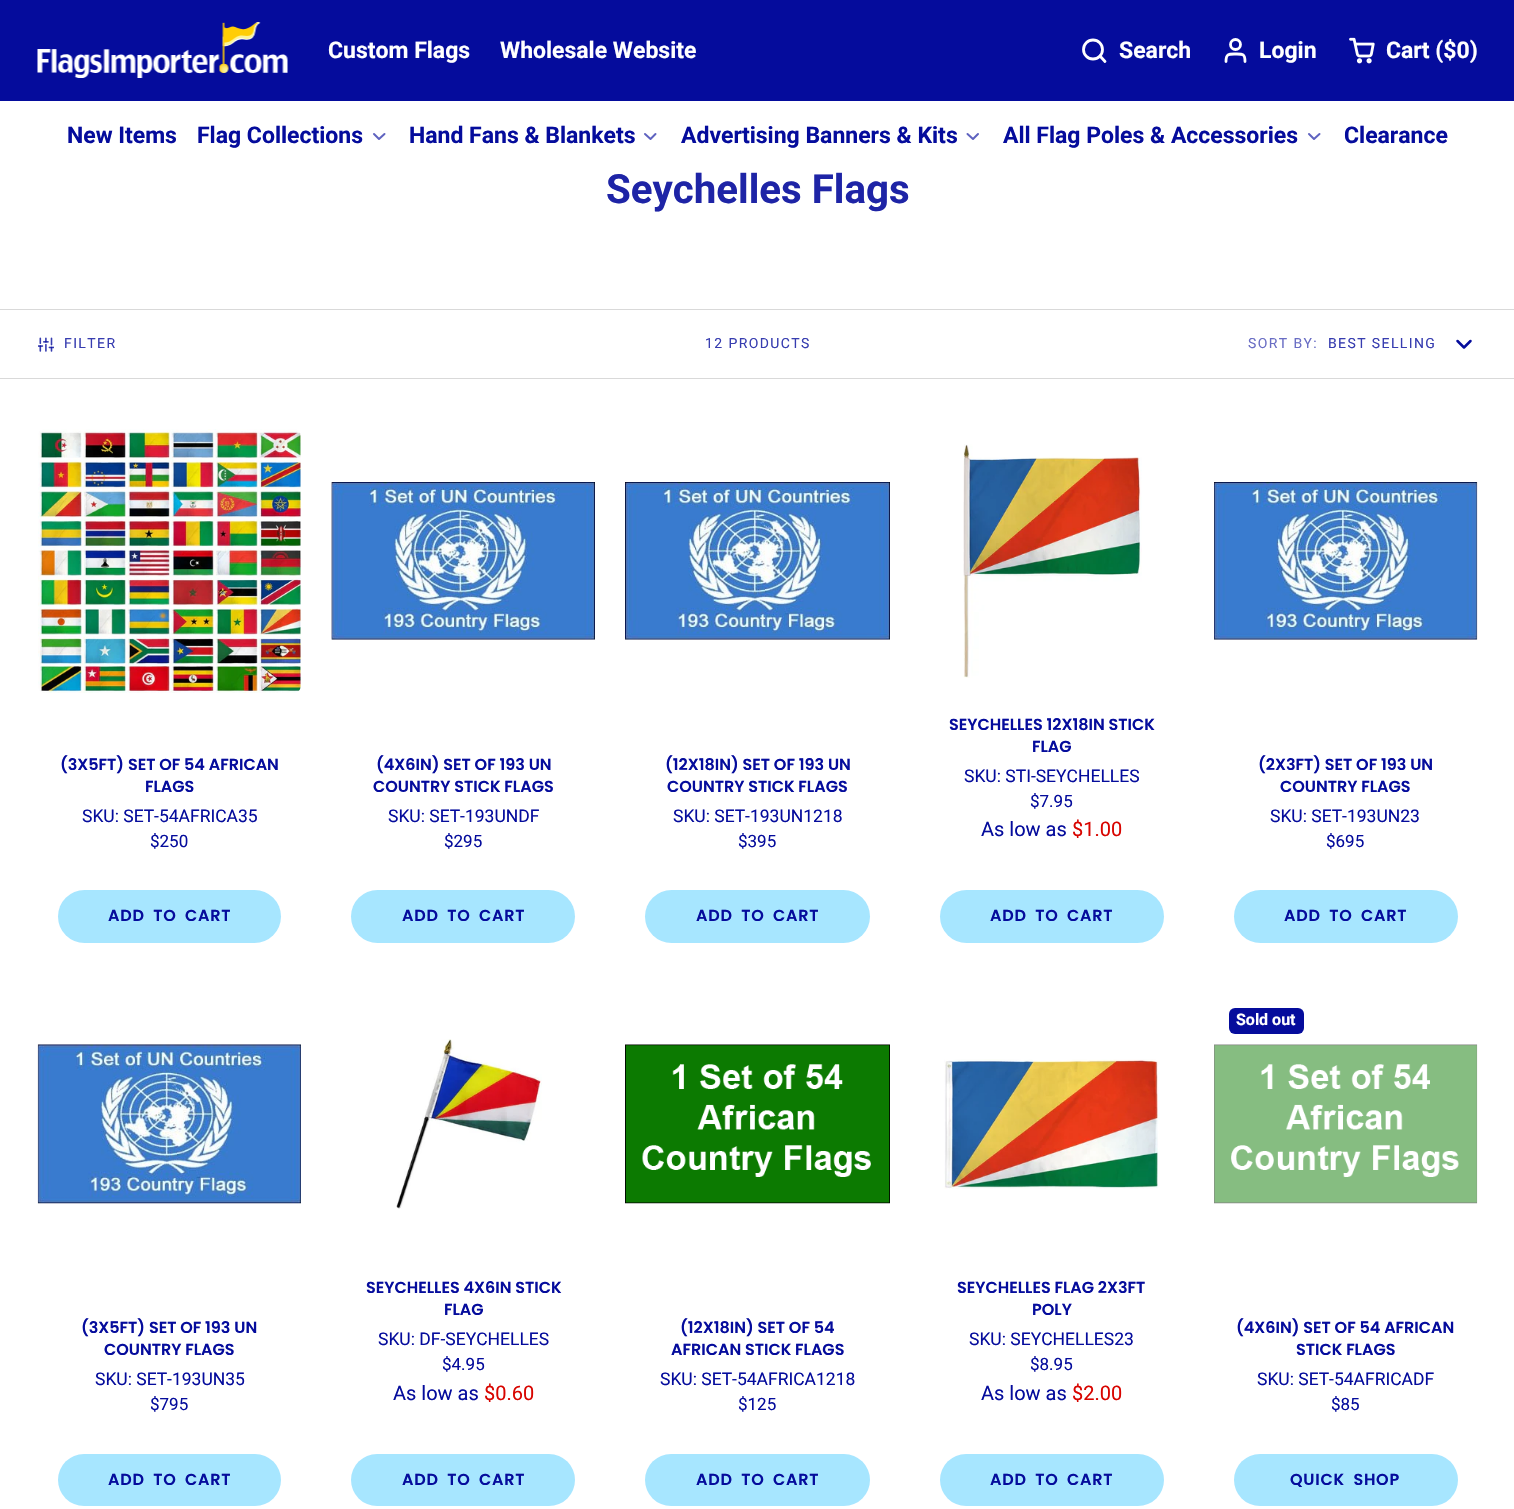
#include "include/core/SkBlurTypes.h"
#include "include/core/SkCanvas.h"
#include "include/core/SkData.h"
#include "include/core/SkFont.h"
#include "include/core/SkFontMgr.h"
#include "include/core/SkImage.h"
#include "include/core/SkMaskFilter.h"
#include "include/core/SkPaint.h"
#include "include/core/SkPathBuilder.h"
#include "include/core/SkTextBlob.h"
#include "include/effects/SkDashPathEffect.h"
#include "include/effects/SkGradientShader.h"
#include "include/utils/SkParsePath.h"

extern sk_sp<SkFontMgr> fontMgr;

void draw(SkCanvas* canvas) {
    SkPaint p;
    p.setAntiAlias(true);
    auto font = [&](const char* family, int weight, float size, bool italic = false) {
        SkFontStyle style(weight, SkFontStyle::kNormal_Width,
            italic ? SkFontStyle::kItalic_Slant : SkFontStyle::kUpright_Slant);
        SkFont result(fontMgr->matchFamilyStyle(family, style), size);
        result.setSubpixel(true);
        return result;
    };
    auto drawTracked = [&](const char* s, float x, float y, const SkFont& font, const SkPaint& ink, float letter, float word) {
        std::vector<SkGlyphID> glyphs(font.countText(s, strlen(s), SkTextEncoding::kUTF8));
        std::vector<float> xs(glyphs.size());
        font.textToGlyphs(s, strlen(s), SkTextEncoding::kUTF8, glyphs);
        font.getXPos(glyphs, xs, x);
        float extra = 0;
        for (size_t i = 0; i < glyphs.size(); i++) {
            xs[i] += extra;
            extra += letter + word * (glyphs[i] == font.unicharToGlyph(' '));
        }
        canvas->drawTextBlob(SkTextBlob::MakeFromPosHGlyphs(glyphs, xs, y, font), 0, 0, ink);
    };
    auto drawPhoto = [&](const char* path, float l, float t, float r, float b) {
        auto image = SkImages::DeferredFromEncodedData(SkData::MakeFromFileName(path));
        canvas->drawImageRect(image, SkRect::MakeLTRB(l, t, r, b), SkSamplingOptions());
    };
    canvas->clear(0xFFFFFFFF);
    p.setColor(0xFF050C9C);
    canvas->drawRect(SkRect::MakeLTRB(0, 0, 1514, 101), p);
    drawPhoto("media/1.png", 37, 22, 288, 78);
    auto font1 = font("Roboto", 700, 23);
    p.setColor(0xFFFFFFFF);
    canvas->drawString("Custom Flags", 328, 58, font1, p);
    canvas->drawString("Wholesale Website", 500, 58, font1, p);
    p.setStyle(SkPaint::kStroke_Style);
    p.setStrokeWidth(2.8f);
    canvas->drawCircle(1093, 49.5f, 9.5f, p);
    p.setStrokeCap(SkPaint::kRound_Cap);
    p.setStrokeJoin(SkPaint::kRound_Join);
    canvas->drawPath(SkPathBuilder().moveTo(1105, 61.5f).lineTo(1100, 56).detach(), p);
    p.setStyle(SkPaint::kFill_Style);
    canvas->drawString("Search", 1119, 58, font1, p);
    p.setStyle(SkPaint::kStroke_Style);
    canvas->drawPath(SkPathBuilder().moveTo(1245, 61.5f).cubicTo(1245, 53.5f, 1242.5f, 54, 1235.5f, 54).cubicTo(1229, 54, 1226, 53.5f, 1226, 61.5f).detach(), p);
    p.setStrokeCap(SkPaint::kButt_Cap);
    p.setStrokeJoin(SkPaint::kMiter_Join);
    canvas->drawCircle(1235.5f, 44.5f, 5, p);
    p.setStyle(SkPaint::kFill_Style);
    canvas->drawString("Login", 1259, 58, font1, p);
    drawPhoto("media/2.png", 1349, 37, 1375, 64);
    canvas->drawString("Cart ($0)", 1386, 58, font1, p);
    p.setColor(0xFF050C9C);
    canvas->drawString("New Items", 67, 143, font1, p);
    canvas->drawString("Flag Collections", 197, 143, font1, p);
    p.setStyle(SkPaint::kStroke_Style);
    p.setStrokeWidth(2);
    p.setStrokeCap(SkPaint::kRound_Cap);
    p.setStrokeJoin(SkPaint::kRound_Join);
    p.setColor(0xFF5F63C0);
    canvas->drawPath(SkPathBuilder().moveTo(374, 134).lineTo(379, 139).lineTo(384.5f, 134).detach(), p);
    p.setStyle(SkPaint::kFill_Style);
    p.setColor(0xFF050C9C);
    canvas->drawString("Hand Fans & Blankets", 409, 143, font1, p);
    p.setStyle(SkPaint::kStroke_Style);
    p.setColor(0xFF5F63C0);
    canvas->drawPath(SkPathBuilder().moveTo(645, 134).lineTo(650.5f, 139).lineTo(655.5f, 134).detach(), p);
    p.setStyle(SkPaint::kFill_Style);
    p.setColor(0xFF050C9C);
    canvas->drawString("Advertising Banners & Kits", 681, 143, font1, p);
    p.setStyle(SkPaint::kStroke_Style);
    p.setColor(0xFF5F63C0);
    canvas->drawPath(SkPathBuilder().moveTo(967.5f, 134).lineTo(973, 139).lineTo(978, 134).detach(), p);
    p.setStyle(SkPaint::kFill_Style);
    p.setColor(0xFF050C9C);
    canvas->drawString("All Flag Poles & Accessories", 1003, 143, font1, p);
    p.setStyle(SkPaint::kStroke_Style);
    p.setColor(0xFF5F63C0);
    canvas->drawPath(SkPathBuilder().moveTo(1309, 134).lineTo(1314, 139).lineTo(1319.5f, 134).detach(), p);
    p.setStyle(SkPaint::kFill_Style);
    p.setColor(0xFF050C9C);
    canvas->drawString("Clearance", 1344, 143, font1, p);
    auto font2 = font("Roboto", 700, 40.25f);
    p.setColor(0xFF1E24A6);
    canvas->drawString("Seychelles Flags", 606, 203, font2, p);
    p.setColor(0xFFD9D9D9);
    canvas->drawRect(SkRect::MakeLTRB(0, 309, 1514, 310), p);
    canvas->drawRect(SkRect::MakeLTRB(0, 378, 1514, 379), p);
    drawPhoto("media/3.png", 38, 337, 54, 352);
    auto font3 = font("Roboto", 400, 14);
    p.setColor(0xFF373DB0);
    drawTracked("FILTER", 64, 348, font3, p, 1.4f, 0);
    drawTracked("12 PRODUCTS", 705, 348, font3, p, 1.4f, 0);
    p.setColor(0xFF696DC4);
    drawTracked("SORT BY:", 1248, 348, font3, p, 1.4f, 0);
    p.setColor(0xFF373DB0);
    drawTracked("BEST SELLING", 1328, 348, font3, p, 1.4f, 0);
    p.setStyle(SkPaint::kStroke_Style);
    p.setStrokeWidth(2.5f);
    p.setColor(0xFF050C9C);
    canvas->drawPath(SkPathBuilder().moveTo(1457.5f, 341).lineTo(1464, 347.5f).lineTo(1470.5f, 341).detach(), p);
    drawPhoto("media/4.png", 38, 429, 301, 693);
    auto font4 = font("Poppins", 600, 16);
    p.setStyle(SkPaint::kFill_Style);
    canvas->drawString("(3X5FT) SET OF 54 AFRICAN", 60, 770, font4, p);
    canvas->drawString("FLAGS", 145, 792, font4, p);
    auto font5 = font("Roboto", 400, 17.5f);
    canvas->drawString("SKU: SET-54AFRICA35", 82, 822, font5, p);
    auto font6 = font("Roboto", 400, 17);
    canvas->drawString("$250", 150, 847, font6, p);
    p.setColor(0xFFA7E6FF);
    canvas->drawRoundRect(SkRect::MakeLTRB(58, 890, 281, 943), 26.5f, 26.5f, p);
    p.setColor(0xFF050C9C);
    drawTracked("ADD TO CART", 108, 921, font4, p, 0.75f, 4);
    drawPhoto("media/5.png", 331, 482, 595, 640);
    canvas->drawString("(4X6IN) SET OF 193 UN", 376, 770, font4, p);
    canvas->drawString("COUNTRY STICK FLAGS", 373, 792, font4, p);
    canvas->drawString("SKU: SET-193UNDF", 388, 822, font5, p);
    canvas->drawString("$295", 444, 847, font6, p);
    p.setColor(0xFFA7E6FF);
    canvas->drawRoundRect(SkRect::MakeLTRB(351, 890, 575, 943), 26.5f, 26.5f, p);
    p.setColor(0xFF050C9C);
    drawTracked("ADD TO CART", 402, 921, font4, p, 0.75f, 4);
    drawPhoto("media/6.png", 625, 482, 890, 640);
    canvas->drawString("(12X18IN) SET OF 193 UN", 665, 770, font4, p);
    canvas->drawString("COUNTRY STICK FLAGS", 667, 792, font4, p);
    canvas->drawString("SKU: SET-193UN1218", 673, 822, font5, p);
    canvas->drawString("$395", 738, 847, font6, p);
    p.setColor(0xFFA7E6FF);
    canvas->drawRoundRect(SkRect::MakeLTRB(645, 890, 870, 943), 26.5f, 26.5f, p);
    p.setColor(0xFF050C9C);
    drawTracked("ADD TO CART", 696, 921, font4, p, 0.75f, 4);
    drawPhoto("media/7.png", 963, 444, 1142, 678);
    canvas->drawString("SEYCHELLES 12X18IN STICK", 949, 730, font4, p);
    canvas->drawString("FLAG", 1032, 752, font4, p);
    canvas->drawString("SKU: STI-SEYCHELLES", 964, 782, font5, p);
    canvas->drawString("$7.95", 1030, 807, font6, p);
    auto font7 = font("Roboto", 400, 20);
    canvas->drawString("As low as", 981, 836, font7, p);
    p.setColor(0xFFD80500);
    canvas->drawString("$1.00", 1072, 836, font7, p);
    p.setColor(0xFFA7E6FF);
    canvas->drawRoundRect(SkRect::MakeLTRB(940, 890, 1164, 943), 26.5f, 26.5f, p);
    p.setColor(0xFF050C9C);
    drawTracked("ADD TO CART", 990, 921, font4, p, 0.75f, 4);
    drawPhoto("media/8.png", 1214, 482, 1478, 640);
    canvas->drawString("(2X3FT) SET OF 193 UN", 1258, 770, font4, p);
    canvas->drawString("COUNTRY FLAGS", 1280, 792, font4, p);
    canvas->drawString("SKU: SET-193UN23", 1270, 822, font5, p);
    canvas->drawString("$695", 1326, 847, font6, p);
    p.setColor(0xFFA7E6FF);
    canvas->drawRoundRect(SkRect::MakeLTRB(1234, 890, 1458, 943), 26.5f, 26.5f, p);
    p.setColor(0xFF050C9C);
    drawTracked("ADD TO CART", 1284, 921, font4, p, 0.75f, 4);
    drawPhoto("media/9.png", 37, 1044, 301, 1204);
    canvas->drawString("(3X5FT) SET OF 193 UN", 81, 1333, font4, p);
    canvas->drawString("COUNTRY FLAGS", 104, 1355, font4, p);
    canvas->drawString("SKU: SET-193UN35", 95, 1385, font5, p);
    canvas->drawString("$795", 150, 1410, font6, p);
    p.setColor(0xFFA7E6FF);
    canvas->drawRoundRect(SkRect::MakeLTRB(58, 1454, 281, 1506), 26, 26, p);
    p.setColor(0xFF050C9C);
    drawTracked("ADD TO CART", 108, 1485, font4, p, 0.75f, 4);
    drawPhoto("media/10.png", 396, 1039, 542, 1209);
    canvas->drawString("SEYCHELLES 4X6IN STICK", 366, 1293, font4, p);
    canvas->drawString("FLAG", 444, 1315, font4, p);
    canvas->drawString("SKU: DF-SEYCHELLES", 378, 1345, font5, p);
    canvas->drawString("$4.95", 442, 1370, font6, p);
    canvas->drawString("As low as", 393, 1400, font7, p);
    p.setColor(0xFFD80500);
    canvas->drawString("$0.60", 484, 1400, font7, p);
    p.setColor(0xFFA7E6FF);
    canvas->drawRoundRect(SkRect::MakeLTRB(351, 1454, 575, 1506), 26, 26, p);
    p.setColor(0xFF050C9C);
    drawTracked("ADD TO CART", 402, 1485, font4, p, 0.75f, 4);
    drawPhoto("media/11.png", 625, 1044, 890, 1204);
    canvas->drawString("(12X18IN) SET OF 54", 680, 1333, font4, p);
    canvas->drawString("AFRICAN STICK FLAGS", 671, 1355, font4, p);
    canvas->drawString("SKU: SET-54AFRICA1218", 660, 1385, font5, p);
    canvas->drawString("$125", 738, 1410, font6, p);
    p.setColor(0xFFA7E6FF);
    canvas->drawRoundRect(SkRect::MakeLTRB(645, 1454, 870, 1506), 26, 26, p);
    p.setColor(0xFF050C9C);
    drawTracked("ADD TO CART", 696, 1485, font4, p, 0.75f, 4);
    drawPhoto("media/12.png", 944, 1059, 1160, 1189);
    canvas->drawString("SEYCHELLES FLAG 2X3FT", 957, 1293, font4, p);
    canvas->drawString("POLY", 1032, 1315, font4, p);
    canvas->drawString("SKU: SEYCHELLES23", 969, 1345, font5, p);
    canvas->drawString("$8.95", 1030, 1370, font6, p);
    canvas->drawString("As low as", 981, 1400, font7, p);
    p.setColor(0xFFD80500);
    canvas->drawString("$2.00", 1072, 1400, font7, p);
    p.setColor(0xFFA7E6FF);
    canvas->drawRoundRect(SkRect::MakeLTRB(940, 1454, 1164, 1506), 26, 26, p);
    p.setColor(0xFF050C9C);
    drawTracked("ADD TO CART", 990, 1485, font4, p, 0.75f, 4);
    drawPhoto("media/13.png", 1214, 1044, 1478, 1204);
    p.setColor(0x80FFFFFF);
    canvas->drawPath(SkPathBuilder().moveTo(1222, 993).lineTo(1470, 993).cubicTo(1474.5f, 993, 1478, 996.5f, 1478, 1001).lineTo(1478, 1256).lineTo(1214, 1256).lineTo(1214, 1001).cubicTo(1214, 996.5f, 1217.5f, 993, 1222, 993).close().detach(), p);
    p.setColor(0xFF050C9C);
    canvas->drawRoundRect(SkRect::MakeLTRB(1229, 1008, 1304, 1034), 6, 6, p);
    auto font8 = font("Roboto", 700, 16);
    p.setColor(0xFFFFFFFF);
    canvas->drawString("Sold out", 1236, 1025, font8, p);
    p.setColor(0xFF050C9C);
    canvas->drawString("(4X6IN) SET OF 54 AFRICAN", 1236, 1333, font4, p);
    canvas->drawString("STICK FLAGS", 1296, 1355, font4, p);
    canvas->drawString("SKU: SET-54AFRICADF", 1257, 1385, font5, p);
    canvas->drawString("$85", 1331, 1410, font6, p);
    p.setColor(0xFFA7E6FF);
    canvas->drawRoundRect(SkRect::MakeLTRB(1234, 1454, 1458, 1506), 26, 26, p);
    p.setColor(0xFF050C9C);
    drawTracked("QUICK SHOP", 1290, 1485, font4, p, 0.75f, 4);
}
